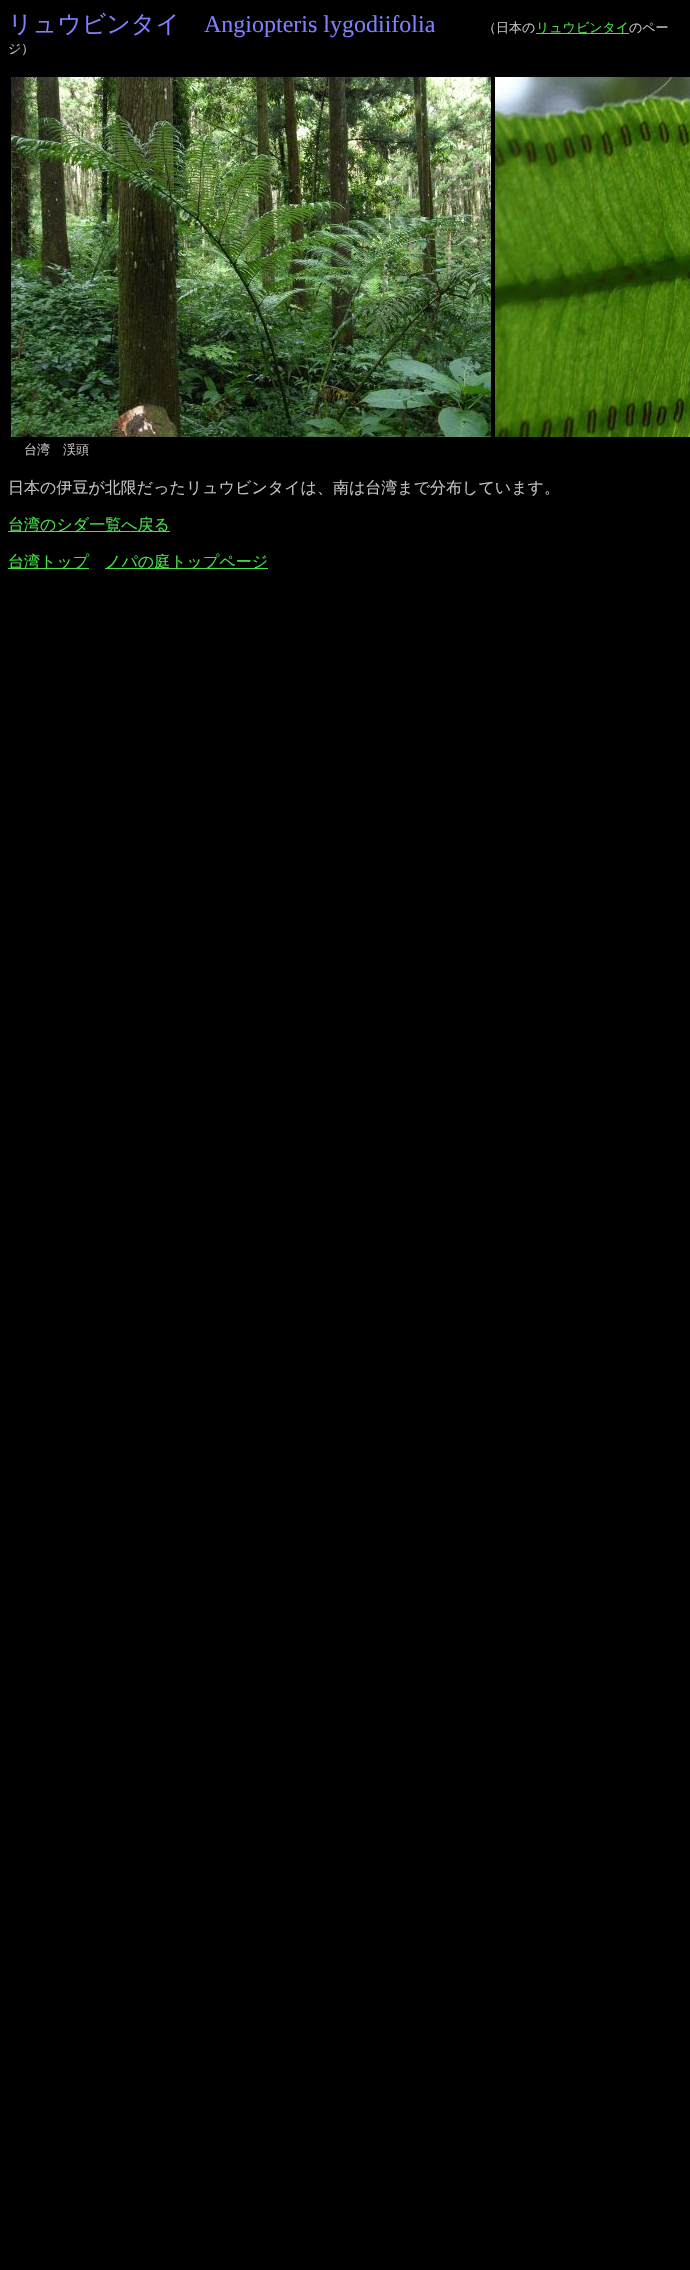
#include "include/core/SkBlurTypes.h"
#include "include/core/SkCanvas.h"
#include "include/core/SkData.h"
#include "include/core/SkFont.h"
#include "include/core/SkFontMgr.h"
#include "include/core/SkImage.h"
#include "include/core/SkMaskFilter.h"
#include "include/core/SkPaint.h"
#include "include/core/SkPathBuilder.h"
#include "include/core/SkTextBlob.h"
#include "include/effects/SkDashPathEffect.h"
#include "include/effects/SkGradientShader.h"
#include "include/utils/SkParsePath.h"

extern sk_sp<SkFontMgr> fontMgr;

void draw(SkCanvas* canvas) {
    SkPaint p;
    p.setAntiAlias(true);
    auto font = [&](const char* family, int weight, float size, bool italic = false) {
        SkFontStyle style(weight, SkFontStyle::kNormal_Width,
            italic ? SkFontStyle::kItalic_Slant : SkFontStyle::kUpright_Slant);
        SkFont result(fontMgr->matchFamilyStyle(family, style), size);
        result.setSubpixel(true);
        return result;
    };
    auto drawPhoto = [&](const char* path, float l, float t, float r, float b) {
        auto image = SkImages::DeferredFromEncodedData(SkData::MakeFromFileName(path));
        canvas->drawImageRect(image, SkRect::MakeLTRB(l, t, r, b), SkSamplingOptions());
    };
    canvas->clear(0xFF000000);
    auto font1 = font("WenQuanYi Zen Hei", 500, 24);
    p.setColor(0xFF8080FF);
    canvas->drawString("リュウビンタイ", 8, 32, font1, p);
    auto font2 = font("Liberation Serif", 400, 24);
    canvas->drawString("Angiopteris lygodiifolia", 204, 32, font2, p);
    auto font3 = font("WenQuanYi Zen Hei", 500, 13);
    p.setColor(0xFFC0C0C0);
    canvas->drawString("（日本の", 483, 32, font3, p);
    p.setColor(0xFF46E146);
    canvas->drawRect(SkRect::MakeLTRB(536, 33, 629, 34), p);
    canvas->drawString("リュウビンタイ", 536, 32, font3, p);
    p.setColor(0xFFC0C0C0);
    canvas->drawString("のペー", 629, 32, font3, p);
    canvas->drawString("ジ）", 8, 53, font3, p);
    drawPhoto("media/1.png", 495, 77, 690, 437);
    drawPhoto("media/2.png", 11, 77, 491, 437);
    canvas->drawString("台湾　渓頭", 24, 454, font3, p);
    auto font4 = font("WenQuanYi Zen Hei", 500, 16);
    canvas->drawString("日本の伊豆が北限だったリュウビンタイは、南は台湾まで分布しています。", 8, 493, font4, p);
    p.setColor(0xFF46E146);
    canvas->drawRect(SkRect::MakeLTRB(8, 531, 170, 532), p);
    canvas->drawString("台湾のシダ一覧へ戻る", 8, 530, font4, p);
    canvas->drawRect(SkRect::MakeLTRB(8, 568, 89, 569), p);
    canvas->drawString("台湾トップ", 8, 567, font4, p);
    canvas->drawRect(SkRect::MakeLTRB(105, 568, 268, 569), p);
    canvas->drawString("ノパの庭トップページ", 105, 567, font4, p);
}
